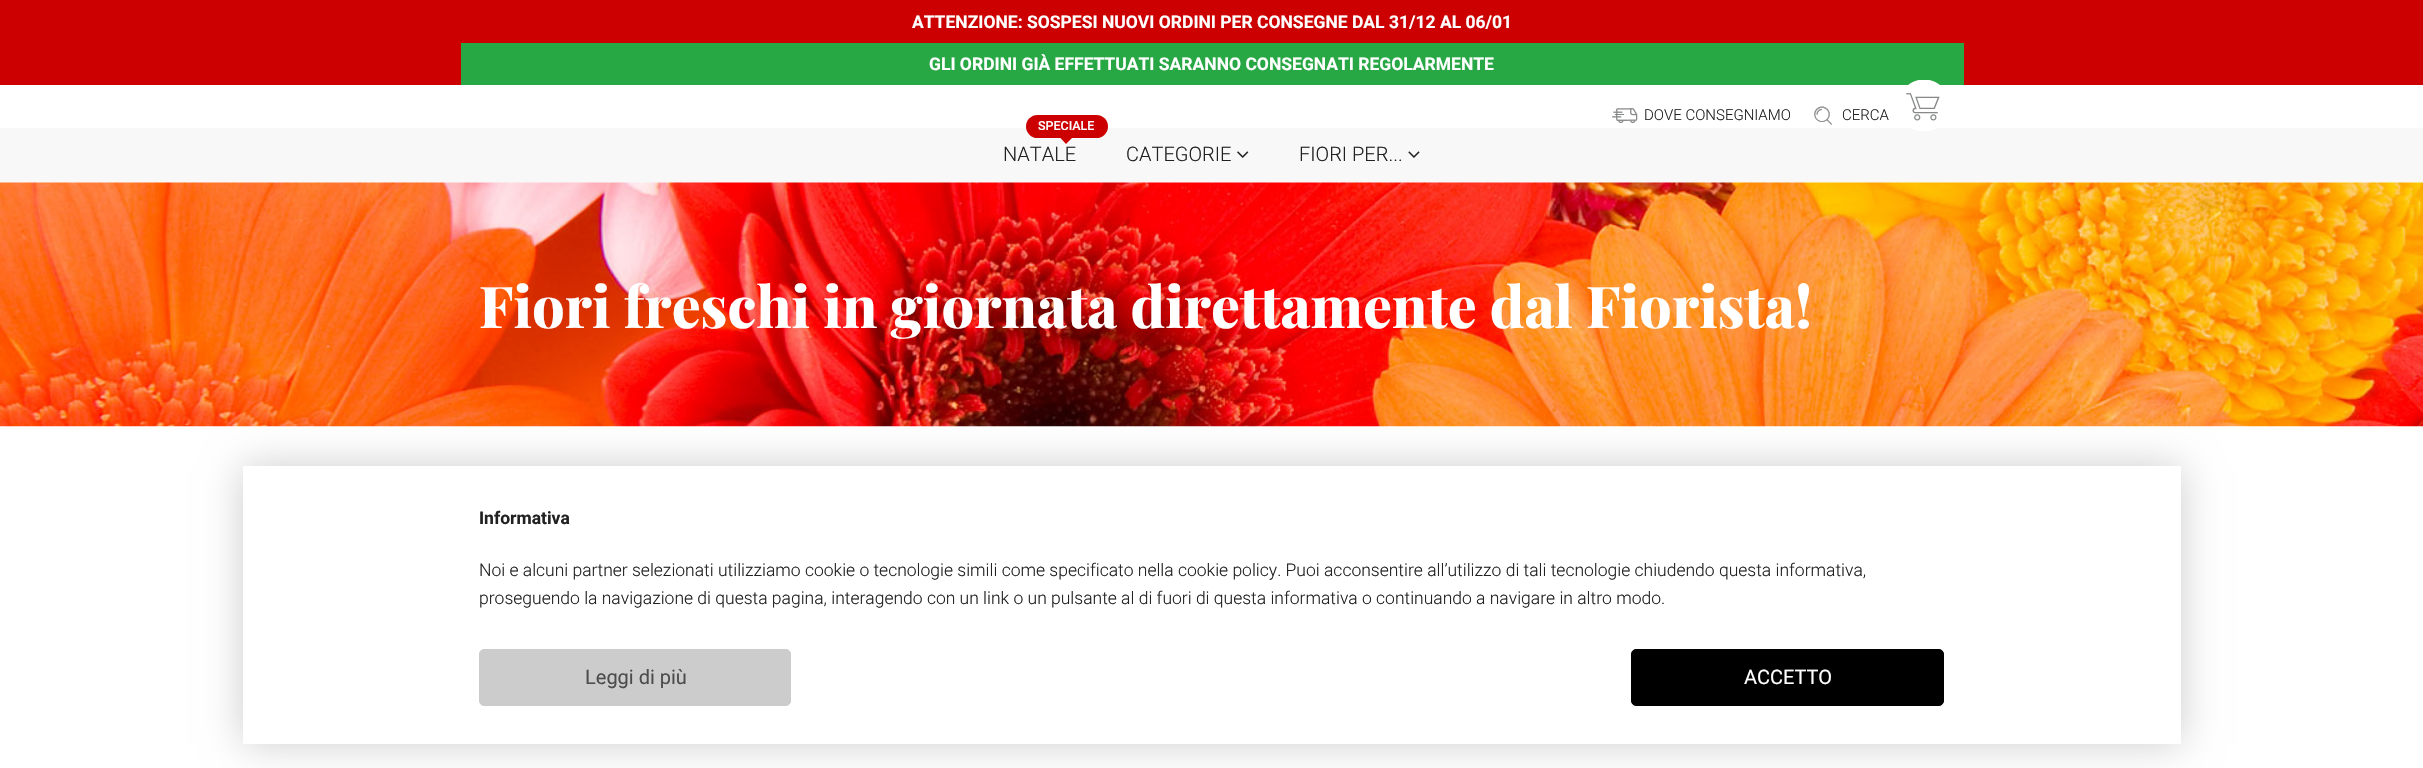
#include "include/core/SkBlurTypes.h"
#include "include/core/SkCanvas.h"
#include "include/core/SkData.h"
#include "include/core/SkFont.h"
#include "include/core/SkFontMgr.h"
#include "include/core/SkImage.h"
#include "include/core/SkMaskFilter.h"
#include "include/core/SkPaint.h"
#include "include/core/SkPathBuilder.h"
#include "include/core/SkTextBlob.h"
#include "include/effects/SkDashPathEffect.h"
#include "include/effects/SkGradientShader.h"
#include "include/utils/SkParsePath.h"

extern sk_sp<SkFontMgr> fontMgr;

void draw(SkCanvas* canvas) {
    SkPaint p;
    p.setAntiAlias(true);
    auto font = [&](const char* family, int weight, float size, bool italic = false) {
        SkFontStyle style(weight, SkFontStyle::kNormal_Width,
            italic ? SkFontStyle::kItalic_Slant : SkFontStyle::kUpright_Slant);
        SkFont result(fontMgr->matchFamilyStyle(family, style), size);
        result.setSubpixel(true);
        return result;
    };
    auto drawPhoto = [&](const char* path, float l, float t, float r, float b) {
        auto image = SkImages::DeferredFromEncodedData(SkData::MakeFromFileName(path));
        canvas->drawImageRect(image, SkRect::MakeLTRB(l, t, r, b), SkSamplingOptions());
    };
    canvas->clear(0xFFFFFFFF);
    p.setColor(0xFFCC0000);
    canvas->drawRect(SkRect::MakeLTRB(0, 0, 2423, 85), p);
    auto font1 = font("Roboto", 700, 17.5f);
    p.setColor(0xFFFFFFFF);
    canvas->drawString("ATTENZIONE: SOSPESI NUOVI ORDINI PER CONSEGNE DAL 31/12 AL 06/01", 912, 28, font1, p);
    p.setColor(0xFF28A745);
    canvas->drawRect(SkRect::MakeLTRB(461, 43, 1964, 85), p);
    p.setColor(0xFFFFFFFF);
    canvas->drawString("GLI ORDINI GIÀ EFFETTUATI SARANNO CONSEGNATI REGOLARMENTE", 929, 70, font1, p);
    drawPhoto("media/1.png", 1612, 108, 1638, 124);
    auto font2 = font("Roboto", 300, 15);
    p.setColor(0xFF212121);
    canvas->drawString("DOVE CONSEGNIAMO", 1644, 120, font2, p);
    drawPhoto("media/2.png", 1814, 106, 1832, 125);
    canvas->drawString("CERCA", 1842, 120, font2, p);
    p.setColor(0xFFF8F8F8);
    canvas->drawRect(SkRect::MakeLTRB(0, 128, 2423, 183), p);
    drawPhoto("media/3.png", 1906, 80, 1940, 131);
    p.setColor(0xFFCC0000);
    canvas->drawRoundRect(SkRect::MakeLTRB(1026, 115, 1108, 138), 11.5f, 11.5f, p);
    auto font3 = font("Roboto", 500, 12.5f);
    p.setColor(0xFFFFFFFF);
    canvas->drawString("SPECIALE", 1038, 130, font3, p);
    p.setColor(0xFFCC0000);
    canvas->drawPath(SkPathBuilder().moveTo(1060, 137.5f).lineTo(1072.5f, 137.5f).lineTo(1066, 144).close().detach(), p);
    auto font4 = font("Roboto", 300, 20);
    p.setColor(0xFF212121);
    canvas->drawString("NATALE", 1003, 161, font4, p);
    canvas->drawString("CATEGORIE", 1126, 161, font4, p);
    drawPhoto("media/4.png", 1237, 151, 1249, 158);
    canvas->drawString("FIORI PER...", 1299, 161, font4, p);
    drawPhoto("media/5.png", 1408, 151, 1420, 158);
    drawPhoto("media/6.png", 0, 182, 2423, 427);
    auto font5 = font("Playfair Display", 800, 57.5f);
    p.setColor(0xFFFFFFFF);
    canvas->drawString("Fiori freschi in giornata direttamente dal Fiorista!", 479, 328, font5, p);
    p.setColor(0xFFCDCDCD);
    p.setMaskFilter(SkMaskFilter::MakeBlur(kNormal_SkBlurStyle, 19));
    canvas->drawRect(SkRect::MakeLTRB(243, 466, 2181, 744), p);
    p.setMaskFilter(nullptr);
    p.setColor(0xFFFFFFFF);
    canvas->drawRect(SkRect::MakeLTRB(243, 466, 2181, 744), p);
    p.setColor(0xFF212121);
    canvas->drawString("Informativa", 479, 524, font1, p);
    auto font6 = font("Roboto", 300, 17.5f);
    canvas->drawString("Noi e alcuni partner selezionati utilizziamo cookie o tecnologie simili come specificato nella cookie policy. Puoi acconsentire all’utilizzo di tali tecnologie chiudendo questa informativa,", 479, 576, font6, p);
    canvas->drawString("proseguendo la navigazione di questa pagina, interagendo con un link o un pulsante al di fuori di questa informativa o continuando a navigare in altro modo.", 479, 604, font6, p);
    p.setColor(0xFFCCCCCC);
    canvas->drawRoundRect(SkRect::MakeLTRB(479.5f, 649.5f, 790.5f, 705.5f), 4.5f, 4.5f, p);
    p.setStyle(SkPaint::kStroke_Style);
    p.setStrokeWidth(1);
    canvas->drawRoundRect(SkRect::MakeLTRB(479.5f, 649.5f, 790.5f, 705.5f), 4.5f, 4.5f, p);
    auto font7 = font("Roboto", 400, 20);
    p.setStyle(SkPaint::kFill_Style);
    p.setColor(0xFF4D4D4D);
    canvas->drawString("Leggi di più", 585, 684, font7, p);
    p.setColor(0xFF000000);
    canvas->drawRoundRect(SkRect::MakeLTRB(1631.5f, 649.5f, 1943.5f, 705.5f), 4.5f, 4.5f, p);
    p.setStyle(SkPaint::kStroke_Style);
    canvas->drawRoundRect(SkRect::MakeLTRB(1631.5f, 649.5f, 1943.5f, 705.5f), 4.5f, 4.5f, p);
    p.setStyle(SkPaint::kFill_Style);
    p.setColor(0xFFFFFFFF);
    canvas->drawString("ACCETTO", 1744, 684, font7, p);
}
